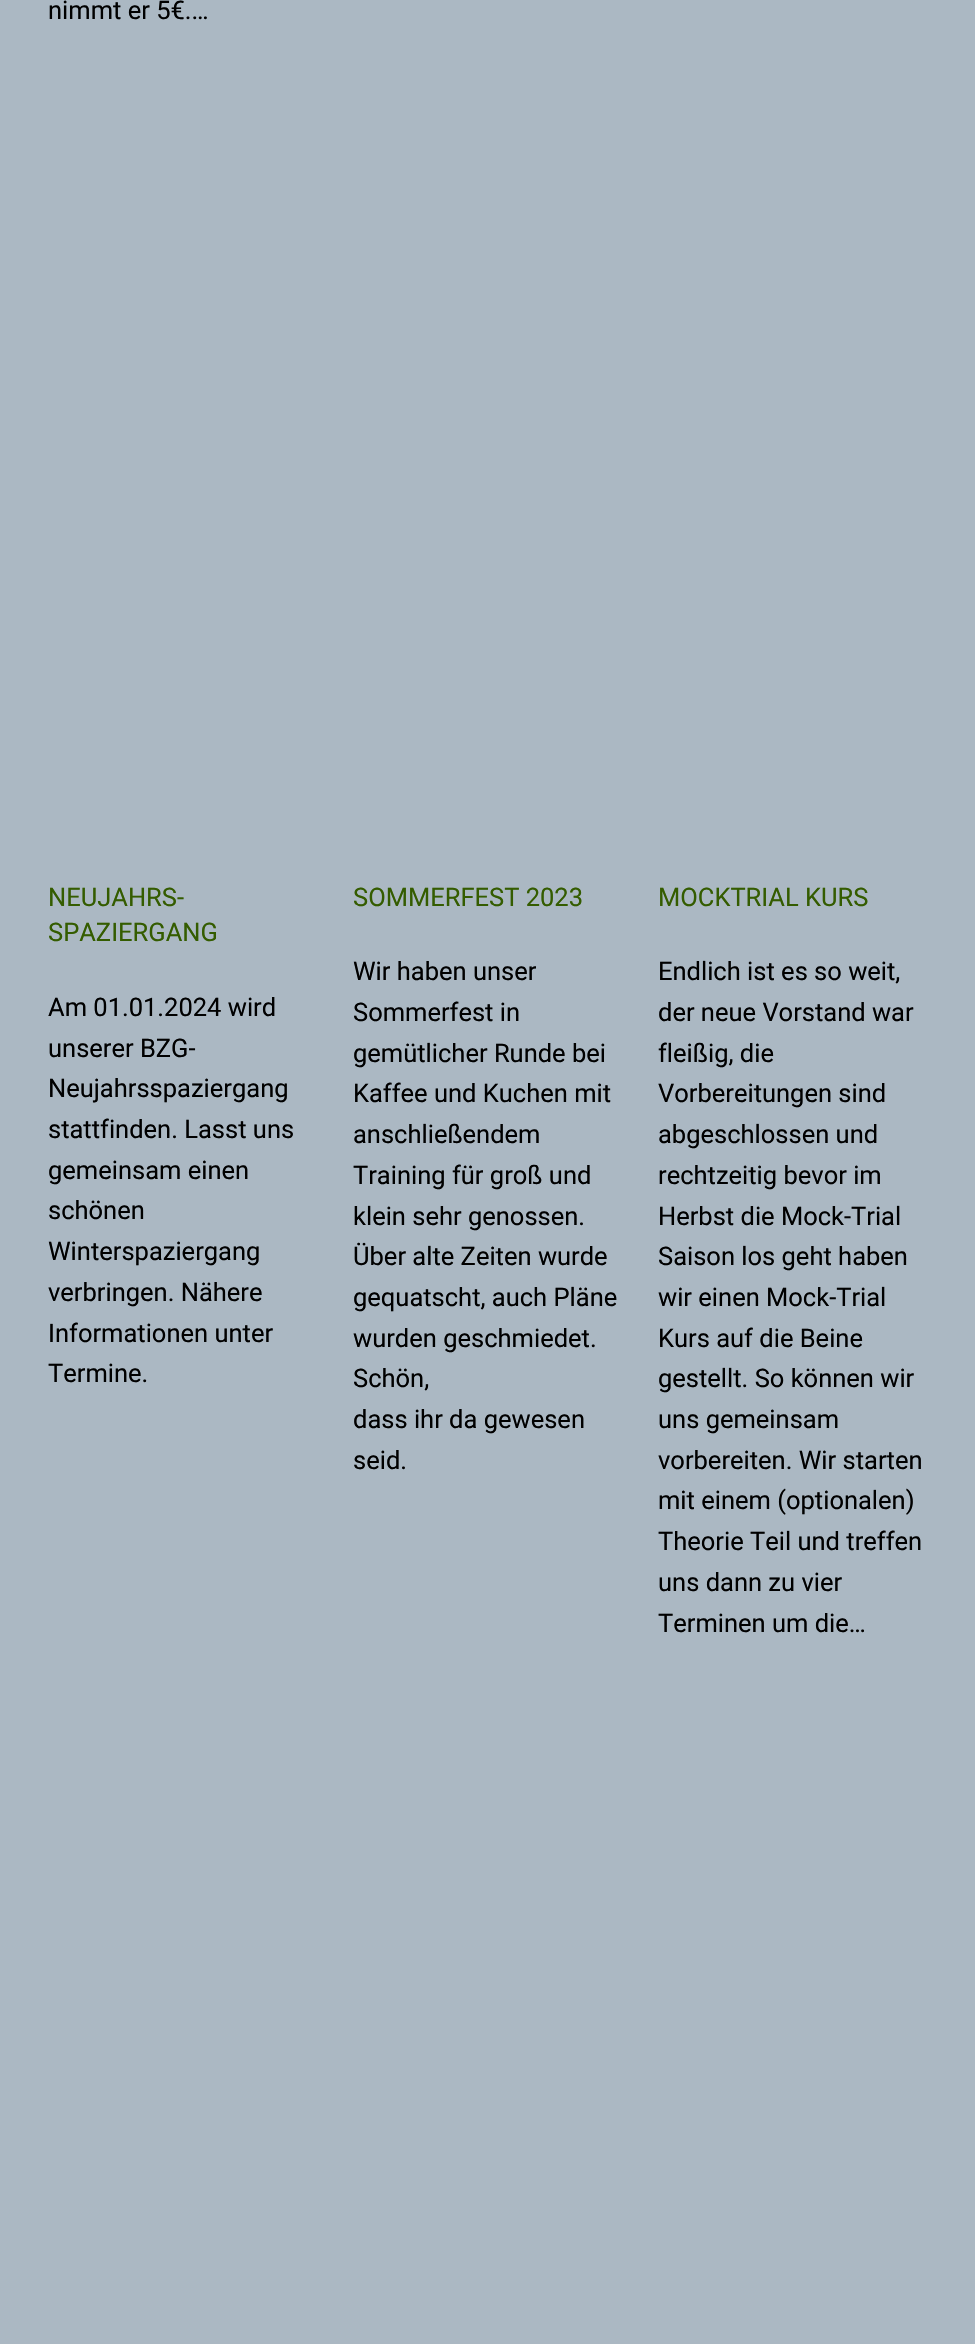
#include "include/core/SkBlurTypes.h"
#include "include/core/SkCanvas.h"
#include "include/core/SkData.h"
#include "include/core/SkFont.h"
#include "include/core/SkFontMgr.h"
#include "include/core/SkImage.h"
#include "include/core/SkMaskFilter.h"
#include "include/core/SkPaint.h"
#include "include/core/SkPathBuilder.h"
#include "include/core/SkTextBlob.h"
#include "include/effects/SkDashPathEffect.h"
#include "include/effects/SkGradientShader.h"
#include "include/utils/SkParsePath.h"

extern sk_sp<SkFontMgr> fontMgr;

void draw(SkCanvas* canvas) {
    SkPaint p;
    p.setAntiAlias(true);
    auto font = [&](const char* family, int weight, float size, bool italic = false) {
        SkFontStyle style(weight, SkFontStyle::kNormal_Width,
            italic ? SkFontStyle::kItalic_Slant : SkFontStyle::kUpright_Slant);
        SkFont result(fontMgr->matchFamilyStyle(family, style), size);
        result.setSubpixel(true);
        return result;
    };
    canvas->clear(0xFFABB8C3);
    auto font1 = font("Roboto", 400, 25.5f);
    p.setColor(0xFF000000);
    canvas->drawString("nimmt er 5€.…", 48, 19, font1, p);
    p.setColor(0xFF345C00);
    canvas->drawString("NEUJAHRS-", 48, 906, font1, p);
    canvas->drawString("SPAZIERGANG", 48, 941, font1, p);
    p.setColor(0xFF000000);
    {
        const struct { const char* s; float x, y; } items[] = {
            {"Am 01.01.2024 wird", 48, 1016},
            {"unserer BZG-", 48, 1057},
            {"Neujahrsspaziergang", 48, 1097},
            {"stattfinden. Lasst uns", 48, 1138},
            {"gemeinsam einen", 48, 1179},
            {"schönen", 48, 1219},
            {"Winterspaziergang", 48, 1260},
            {"verbringen. Nähere", 48, 1301},
            {"Informationen unter", 48, 1342},
            {"Termine.", 48, 1382},
        };
        for (auto [s, x, y] : items) {
            canvas->drawString(s, x, y, font1, p);
        }
    }
    p.setColor(0xFF345C00);
    canvas->drawString("SOMMERFEST 2023", 353, 906, font1, p);
    p.setColor(0xFF000000);
    {
        const struct { const char* s; float x, y; } items[] = {
            {"Wir haben unser", 353, 980},
            {"Sommerfest in", 353, 1021},
            {"gemütlicher Runde bei", 353, 1062},
            {"Kaffee und Kuchen mit", 353, 1102},
            {"anschließendem", 353, 1143},
            {"Training für groß und", 353, 1184},
            {"klein sehr genossen.", 353, 1225},
            {"Über alte Zeiten wurde", 353, 1265},
            {"gequatscht, auch Pläne", 353, 1306},
            {"wurden geschmiedet.", 353, 1347},
            {"Schön,", 353, 1387},
            {"dass ihr da gewesen", 353, 1428},
            {"seid.", 353, 1469},
        };
        for (auto [s, x, y] : items) {
            canvas->drawString(s, x, y, font1, p);
        }
    }
    p.setColor(0xFF345C00);
    canvas->drawString("MOCKTRIAL KURS", 658, 906, font1, p);
    p.setColor(0xFF000000);
    {
        const struct { const char* s; float x, y; } items[] = {
            {"Endlich ist es so weit,", 658, 980},
            {"der neue Vorstand war", 658, 1021},
            {"fleißig, die", 658, 1062},
            {"Vorbereitungen sind", 658, 1102},
            {"abgeschlossen und", 658, 1143},
            {"rechtzeitig bevor im", 658, 1184},
            {"Herbst die Mock-Trial", 658, 1225},
            {"Saison los geht haben", 658, 1265},
            {"wir einen Mock-Trial", 658, 1306},
            {"Kurs auf die Beine", 658, 1347},
            {"gestellt. So können wir", 658, 1387},
            {"uns gemeinsam", 658, 1428},
            {"vorbereiten. Wir starten", 658, 1469},
            {"mit einem (optionalen)", 658, 1509},
            {"Theorie Teil und treffen", 658, 1550},
            {"uns dann zu vier", 658, 1591},
            {"Terminen um die…", 658, 1632},
        };
        for (auto [s, x, y] : items) {
            canvas->drawString(s, x, y, font1, p);
        }
    }
}
